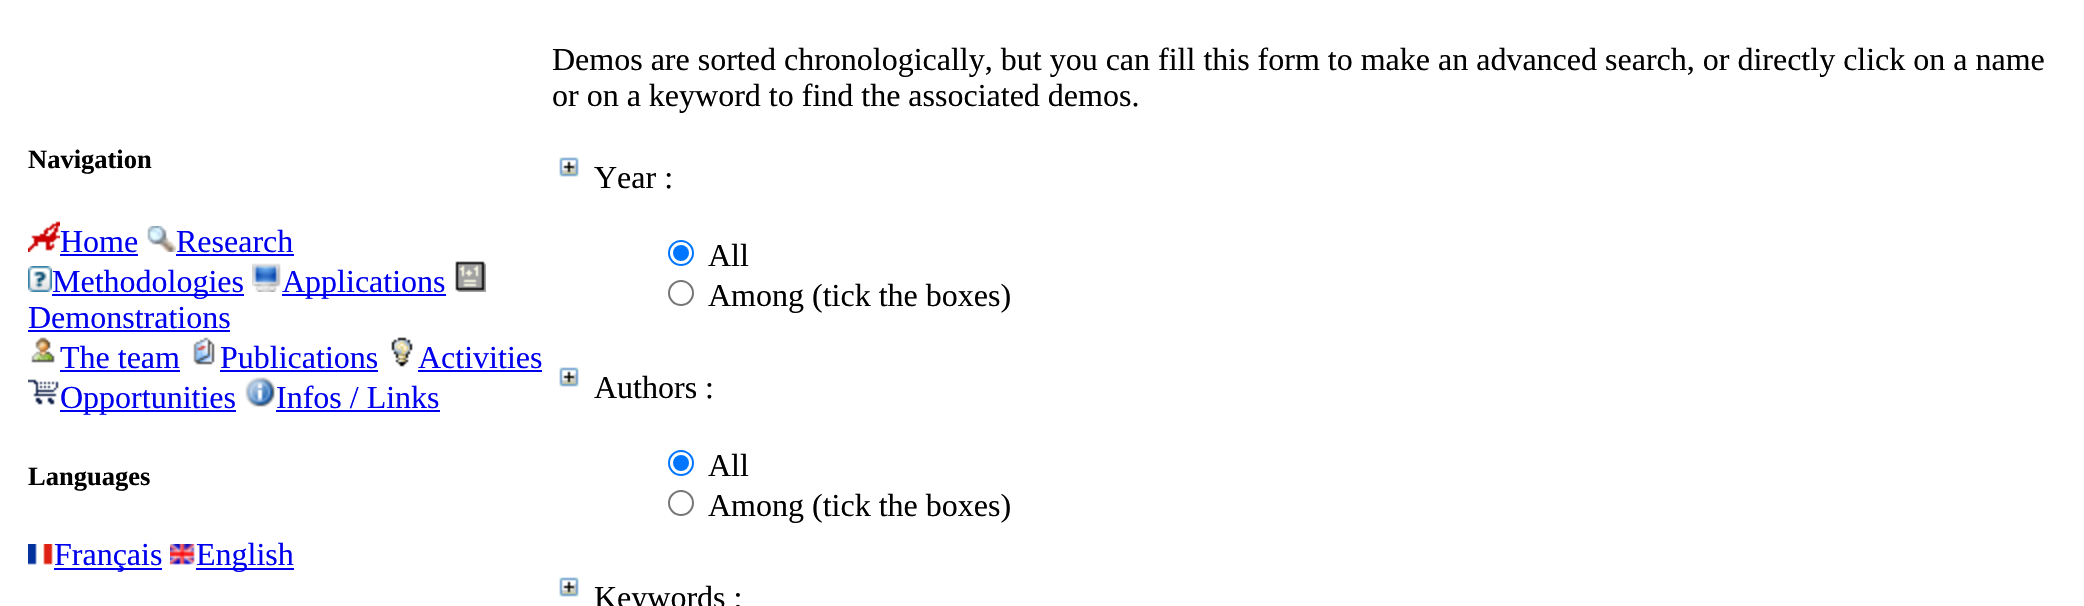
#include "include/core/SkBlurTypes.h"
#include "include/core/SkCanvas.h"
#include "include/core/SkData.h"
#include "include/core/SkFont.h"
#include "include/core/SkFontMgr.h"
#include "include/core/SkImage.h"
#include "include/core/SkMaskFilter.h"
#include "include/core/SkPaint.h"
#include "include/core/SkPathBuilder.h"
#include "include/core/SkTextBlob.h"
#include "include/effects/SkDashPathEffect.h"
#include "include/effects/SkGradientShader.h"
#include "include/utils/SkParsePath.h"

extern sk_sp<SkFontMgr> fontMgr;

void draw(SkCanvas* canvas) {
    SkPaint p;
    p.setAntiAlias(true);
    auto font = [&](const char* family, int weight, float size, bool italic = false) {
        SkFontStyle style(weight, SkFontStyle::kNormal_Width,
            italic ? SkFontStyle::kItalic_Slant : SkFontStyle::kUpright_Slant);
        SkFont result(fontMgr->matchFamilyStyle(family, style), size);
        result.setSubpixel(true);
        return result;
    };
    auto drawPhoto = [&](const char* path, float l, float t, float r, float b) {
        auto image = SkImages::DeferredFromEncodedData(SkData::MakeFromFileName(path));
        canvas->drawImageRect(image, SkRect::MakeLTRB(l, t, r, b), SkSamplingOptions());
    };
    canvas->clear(0xFFFFFFFF);
    auto font1 = font("Liberation Serif", 700, 26.5f);
    p.setColor(0xFF000000);
    canvas->drawString("Navigation", 28, 168, font1, p);
    drawPhoto("media/1.png", 28, 221, 60, 252);
    auto font2 = font("Liberation Serif", 400, 32);
    p.setColor(0xFF0000EE);
    canvas->drawString("Home", 60, 252, font2, p);
    canvas->drawRect(SkRect::MakeLTRB(60, 254, 138, 256), p);
    drawPhoto("media/2.png", 147, 226, 176, 252);
    canvas->drawString("Research", 176, 252, font2, p);
    canvas->drawRect(SkRect::MakeLTRB(176, 254, 294, 256), p);
    drawPhoto("media/3.png", 28, 266, 52, 292);
    canvas->drawRect(SkRect::MakeLTRB(52, 294, 244, 296), p);
    canvas->drawString("Methodologies", 52, 292, font2, p);
    drawPhoto("media/4.png", 252, 263, 281, 292);
    canvas->drawRect(SkRect::MakeLTRB(282, 294, 446, 296), p);
    canvas->drawString("Applications", 282, 292, font2, p);
    drawPhoto("media/5.png", 455, 261, 486, 292);
    canvas->drawString("Demonstrations", 28, 328, font2, p);
    canvas->drawRect(SkRect::MakeLTRB(28, 330, 230, 332), p);
    drawPhoto("media/6.png", 31, 337, 55, 363);
    canvas->drawString("The team", 60, 368, font2, p);
    canvas->drawRect(SkRect::MakeLTRB(60, 370, 180, 372), p);
    drawPhoto("media/7.png", 193, 337, 215, 365);
    canvas->drawString("Publications", 220, 368, font2, p);
    canvas->drawRect(SkRect::MakeLTRB(220, 370, 378, 372), p);
    drawPhoto("media/8.png", 391, 337, 413, 367);
    canvas->drawString("Activities", 418, 368, font2, p);
    canvas->drawRect(SkRect::MakeLTRB(418, 370, 542, 372), p);
    drawPhoto("media/9.png", 28, 379, 59, 405);
    canvas->drawRect(SkRect::MakeLTRB(60, 410, 236, 412), p);
    canvas->drawString("Opportunities", 60, 408, font2, p);
    drawPhoto("media/10.png", 245, 377, 275, 407);
    canvas->drawString("Infos / Links", 276, 408, font2, p);
    canvas->drawRect(SkRect::MakeLTRB(276, 410, 440, 412), p);
    p.setColor(0xFF000000);
    canvas->drawString("Languages", 28, 485, font1, p);
    drawPhoto("media/11.png", 28, 544, 53, 565);
    p.setColor(0xFF0000EE);
    canvas->drawRect(SkRect::MakeLTRB(54, 568, 162, 570), p);
    canvas->drawString("Français", 54, 565, font2, p);
    drawPhoto("media/12.png", 170, 544, 195, 565);
    canvas->drawRect(SkRect::MakeLTRB(196, 568, 294, 570), p);
    canvas->drawString("English", 196, 565, font2, p);
    p.setColor(0xFF000000);
    canvas->drawString("Demos are sorted chronologically, but you can fill this form to make an advanced search, or directly click on a name", 552, 70, font2, p);
    canvas->drawString("or on a keyword to find the associated demos.", 552, 106, font2, p);
    drawPhoto("media/13.png", 559, 157, 579, 177);
    canvas->drawString("Year :", 594, 188, font2, p);
    p.setStyle(SkPaint::kStroke_Style);
    p.setStrokeWidth(2);
    p.setColor(0xFF0075FF);
    canvas->drawCircle(681, 253, 12, p);
    p.setStyle(SkPaint::kFill_Style);
    canvas->drawCircle(681, 253, 8, p);
    p.setColor(0xFF000000);
    canvas->drawString("All", 708, 266, font2, p);
    p.setStyle(SkPaint::kStroke_Style);
    p.setColor(0xFF767676);
    canvas->drawCircle(681, 293, 12, p);
    p.setStyle(SkPaint::kFill_Style);
    p.setColor(0xFF000000);
    canvas->drawString("Among (tick the boxes)", 708, 306, font2, p);
    drawPhoto("media/13.png", 559, 367, 579, 387);
    canvas->drawString("Authors :", 594, 398, font2, p);
    p.setStyle(SkPaint::kStroke_Style);
    p.setColor(0xFF0075FF);
    canvas->drawCircle(681, 463, 12, p);
    p.setStyle(SkPaint::kFill_Style);
    canvas->drawCircle(681, 463, 8, p);
    p.setColor(0xFF000000);
    canvas->drawString("All", 708, 476, font2, p);
    p.setStyle(SkPaint::kStroke_Style);
    p.setColor(0xFF767676);
    canvas->drawCircle(681, 503, 12, p);
    p.setStyle(SkPaint::kFill_Style);
    p.setColor(0xFF000000);
    canvas->drawString("Among (tick the boxes)", 708, 516, font2, p);
    drawPhoto("media/13.png", 559, 577, 579, 597);
    canvas->drawString("Keywords :", 594, 608, font2, p);
}
